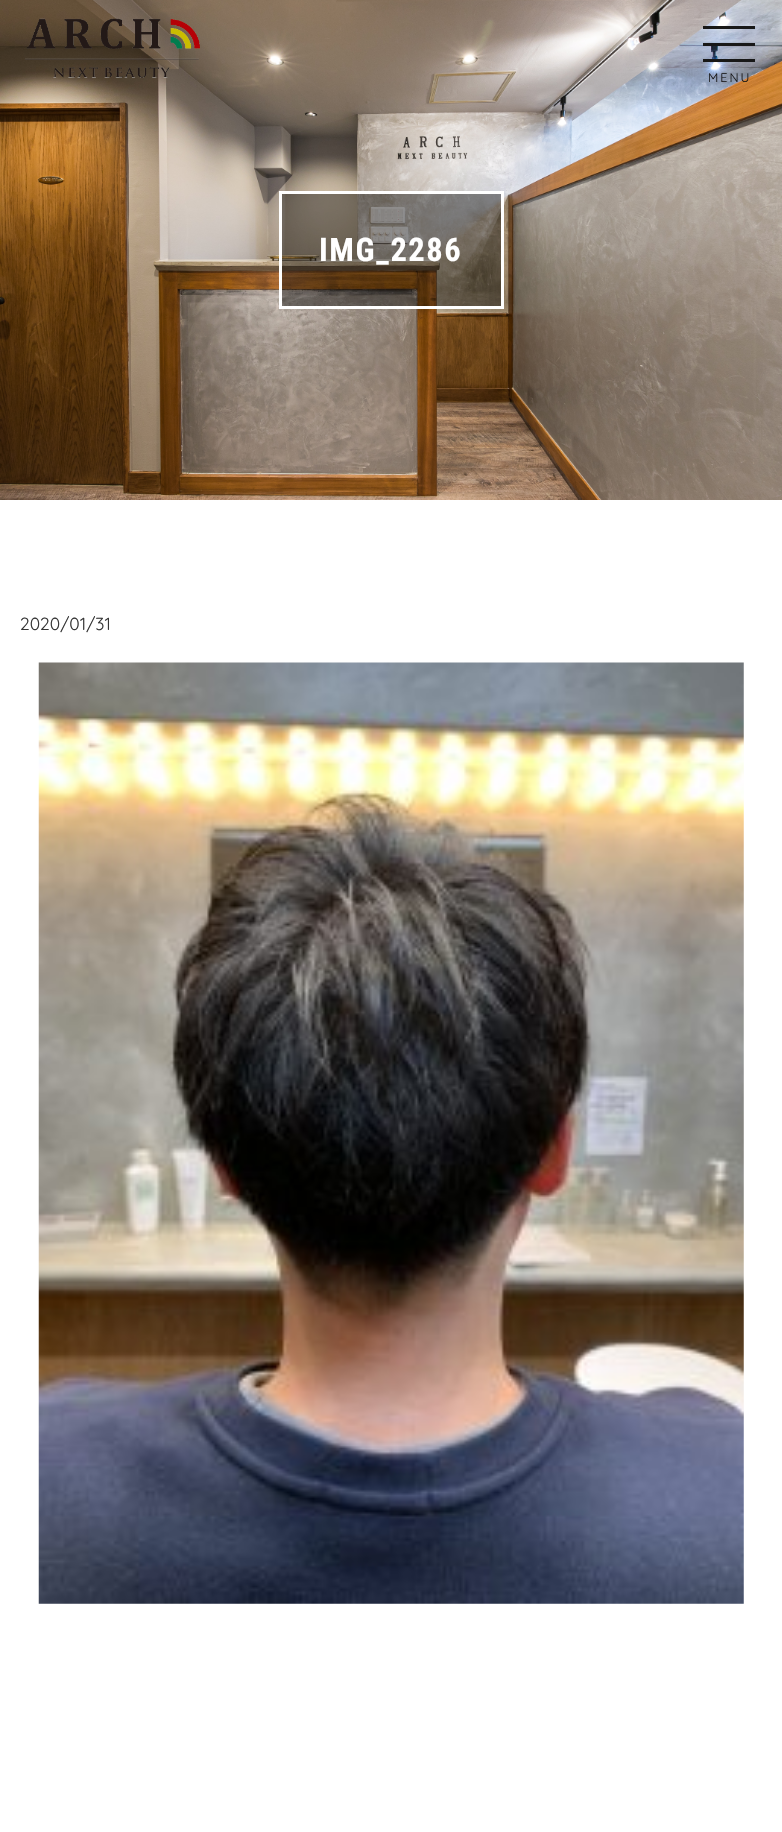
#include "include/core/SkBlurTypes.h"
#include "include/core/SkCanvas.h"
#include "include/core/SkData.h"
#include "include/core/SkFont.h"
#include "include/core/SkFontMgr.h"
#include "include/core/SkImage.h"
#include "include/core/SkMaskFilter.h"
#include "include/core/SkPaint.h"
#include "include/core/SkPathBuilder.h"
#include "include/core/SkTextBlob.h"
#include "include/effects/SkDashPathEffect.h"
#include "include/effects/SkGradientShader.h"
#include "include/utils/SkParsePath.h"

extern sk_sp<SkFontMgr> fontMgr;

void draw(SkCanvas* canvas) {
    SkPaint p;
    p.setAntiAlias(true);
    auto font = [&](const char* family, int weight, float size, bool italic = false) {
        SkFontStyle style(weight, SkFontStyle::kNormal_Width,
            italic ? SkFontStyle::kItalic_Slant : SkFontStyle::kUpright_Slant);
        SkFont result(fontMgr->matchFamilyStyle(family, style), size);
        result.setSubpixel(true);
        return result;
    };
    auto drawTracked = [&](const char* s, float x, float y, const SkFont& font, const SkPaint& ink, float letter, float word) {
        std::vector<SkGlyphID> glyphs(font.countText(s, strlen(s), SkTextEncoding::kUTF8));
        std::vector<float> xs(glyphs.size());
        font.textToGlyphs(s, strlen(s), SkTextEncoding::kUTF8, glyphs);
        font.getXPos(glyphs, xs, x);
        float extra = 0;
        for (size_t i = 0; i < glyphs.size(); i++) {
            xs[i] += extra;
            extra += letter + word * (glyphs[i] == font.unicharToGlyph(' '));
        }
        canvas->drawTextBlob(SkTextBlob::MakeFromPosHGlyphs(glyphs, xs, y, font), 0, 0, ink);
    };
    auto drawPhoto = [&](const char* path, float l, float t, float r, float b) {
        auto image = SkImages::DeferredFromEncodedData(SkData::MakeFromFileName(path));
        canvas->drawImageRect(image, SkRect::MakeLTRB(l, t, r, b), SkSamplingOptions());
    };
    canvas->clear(0xFFFFFFFF);
    drawPhoto("media/2.png", 0, 0, 782, 500);
    drawPhoto("media/1.png", 25, 18, 200, 78);
    {
        const struct { float l, t, r, b; SkColor color; } items[] = {
            {703, 26, 755, 29, 0xFF181818},
            {703, 43, 755, 46, 0xFF181818},
            {703, 59, 755, 62, 0xFF181818},
        };
        for (auto [l, t, r, b, color] : items) {
            p.setColor(color);
            canvas->drawRect(SkRect::MakeLTRB(l, t, r, b), p);
        }
    }
    auto font1 = font("Quicksand", 400, 12.5f);
    drawTracked("MENU", 708, 82, font1, p, 2, 0);
    p.setColor(0x66000000);
    canvas->drawRect(SkRect::MakeLTRB(280.5f, 192.5f, 502.5f, 307.5f), p);
    p.setStyle(SkPaint::kStroke_Style);
    p.setStrokeWidth(3);
    p.setColor(0xFFFFFFFF);
    canvas->drawRect(SkRect::MakeLTRB(280.5f, 192.5f, 502.5f, 307.5f), p);
    auto font2 = font("Roboto Condensed", 700, 32.5f);
    p.setStyle(SkPaint::kFill_Style);
    drawTracked("IMG_2286", 319, 261, font2, p, 1.5f, 0);
    auto font3 = font("Quicksand", 400, 17.5f);
    p.setColor(0xFF363636);
    canvas->drawString("2020/01/31", 20, 630, font3, p);
    drawPhoto("media/3.png", 38, 662, 744, 1604);
}
